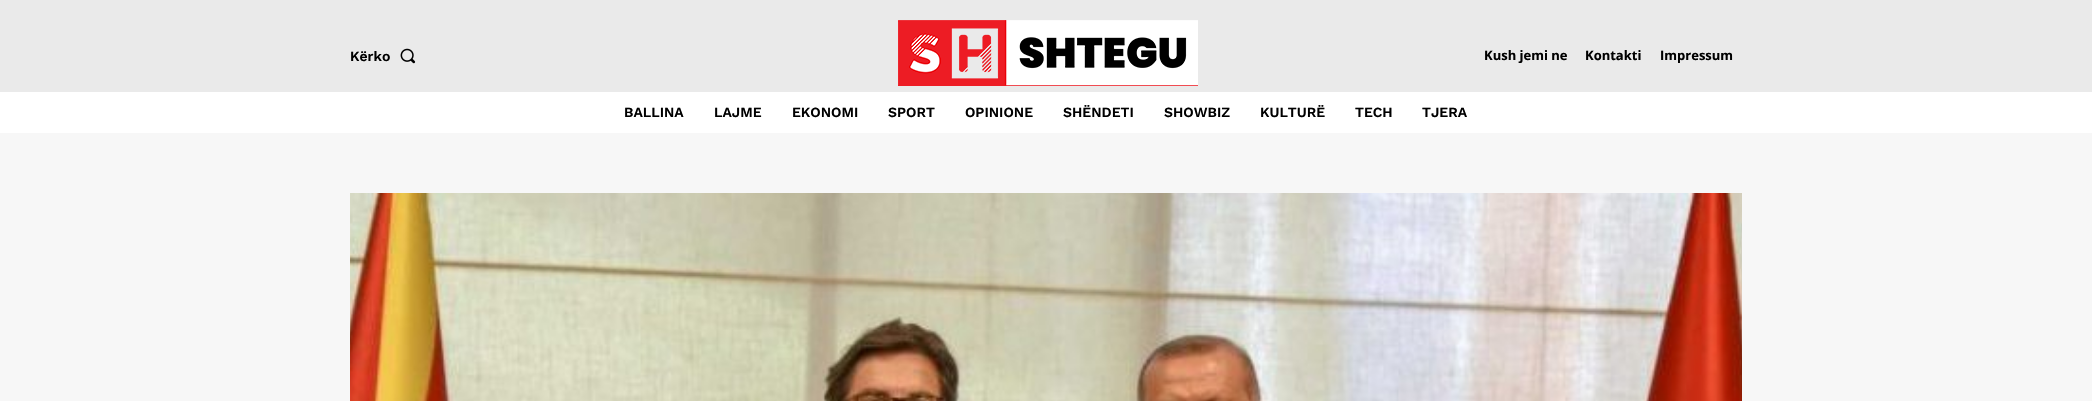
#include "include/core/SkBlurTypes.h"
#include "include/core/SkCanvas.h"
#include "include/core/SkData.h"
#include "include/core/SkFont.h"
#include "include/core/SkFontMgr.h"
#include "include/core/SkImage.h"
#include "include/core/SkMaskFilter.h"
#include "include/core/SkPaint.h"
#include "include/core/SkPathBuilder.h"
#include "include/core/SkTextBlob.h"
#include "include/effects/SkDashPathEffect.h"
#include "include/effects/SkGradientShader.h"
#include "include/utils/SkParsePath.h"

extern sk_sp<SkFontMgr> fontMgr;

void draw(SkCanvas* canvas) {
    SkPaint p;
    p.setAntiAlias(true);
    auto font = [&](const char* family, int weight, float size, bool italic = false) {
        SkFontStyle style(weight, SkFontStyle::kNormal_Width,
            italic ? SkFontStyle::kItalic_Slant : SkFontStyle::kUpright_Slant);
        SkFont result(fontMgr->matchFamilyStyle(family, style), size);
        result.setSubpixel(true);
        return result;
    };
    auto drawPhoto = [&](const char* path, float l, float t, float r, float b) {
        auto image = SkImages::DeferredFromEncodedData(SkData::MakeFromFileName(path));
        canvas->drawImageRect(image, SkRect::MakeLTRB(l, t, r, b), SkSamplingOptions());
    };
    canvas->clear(0xFFF7F7F7);
    p.setColor(0xFFEAEAEA);
    canvas->drawRect(SkRect::MakeLTRB(0, 0, 2092, 92), p);
    auto font1 = font("Work Sans", 600, 14);
    p.setColor(0xFF000000);
    canvas->drawString("Kërko", 350, 61, font1, p);
    drawPhoto("media/1.png", 400, 48, 416, 64);
    drawPhoto("media/2.png", 898, 20, 1198, 86);
    auto font2 = font("Open Sans", 700, 13);
    {
        const struct { const char* s; float x, y; } items[] = {
            {"Kush jemi ne", 1484, 60},
            {"Kontakti", 1585, 60},
            {"Impressum", 1660, 60},
        };
        for (auto [s, x, y] : items) {
            canvas->drawString(s, x, y, font2, p);
        }
    }
    p.setColor(0xFFFFFFFF);
    canvas->drawRect(SkRect::MakeLTRB(0, 92, 2092, 133), p);
    p.setColor(0xFF000000);
    {
        const struct { const char* s; float x, y; } items[] = {
            {"BALLINA", 624, 117},
            {"LAJME", 714, 117},
            {"EKONOMI", 792, 117},
            {"SPORT", 888, 117},
            {"OPINIONE", 965, 117},
            {"SHËNDETI", 1063, 117},
            {"SHOWBIZ", 1164, 117},
            {"KULTURË", 1260, 117},
            {"TECH", 1355, 117},
            {"TJERA", 1422, 117},
        };
        for (auto [s, x, y] : items) {
            canvas->drawString(s, x, y, font1, p);
        }
    }
    drawPhoto("media/3.png", 350, 193, 1742, 401);
}
